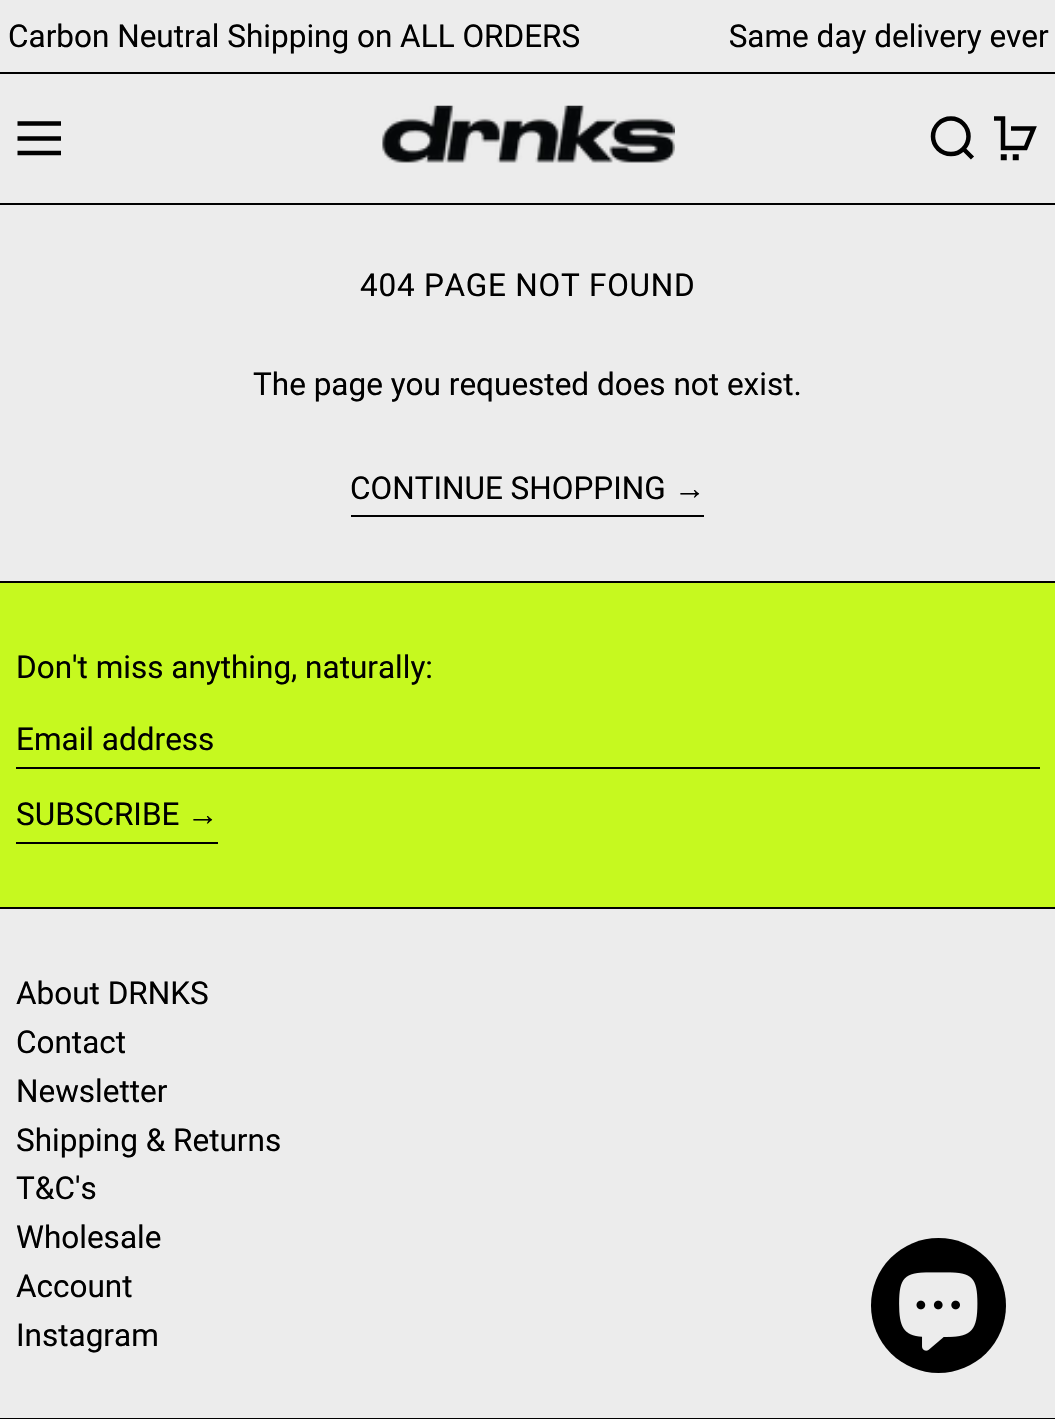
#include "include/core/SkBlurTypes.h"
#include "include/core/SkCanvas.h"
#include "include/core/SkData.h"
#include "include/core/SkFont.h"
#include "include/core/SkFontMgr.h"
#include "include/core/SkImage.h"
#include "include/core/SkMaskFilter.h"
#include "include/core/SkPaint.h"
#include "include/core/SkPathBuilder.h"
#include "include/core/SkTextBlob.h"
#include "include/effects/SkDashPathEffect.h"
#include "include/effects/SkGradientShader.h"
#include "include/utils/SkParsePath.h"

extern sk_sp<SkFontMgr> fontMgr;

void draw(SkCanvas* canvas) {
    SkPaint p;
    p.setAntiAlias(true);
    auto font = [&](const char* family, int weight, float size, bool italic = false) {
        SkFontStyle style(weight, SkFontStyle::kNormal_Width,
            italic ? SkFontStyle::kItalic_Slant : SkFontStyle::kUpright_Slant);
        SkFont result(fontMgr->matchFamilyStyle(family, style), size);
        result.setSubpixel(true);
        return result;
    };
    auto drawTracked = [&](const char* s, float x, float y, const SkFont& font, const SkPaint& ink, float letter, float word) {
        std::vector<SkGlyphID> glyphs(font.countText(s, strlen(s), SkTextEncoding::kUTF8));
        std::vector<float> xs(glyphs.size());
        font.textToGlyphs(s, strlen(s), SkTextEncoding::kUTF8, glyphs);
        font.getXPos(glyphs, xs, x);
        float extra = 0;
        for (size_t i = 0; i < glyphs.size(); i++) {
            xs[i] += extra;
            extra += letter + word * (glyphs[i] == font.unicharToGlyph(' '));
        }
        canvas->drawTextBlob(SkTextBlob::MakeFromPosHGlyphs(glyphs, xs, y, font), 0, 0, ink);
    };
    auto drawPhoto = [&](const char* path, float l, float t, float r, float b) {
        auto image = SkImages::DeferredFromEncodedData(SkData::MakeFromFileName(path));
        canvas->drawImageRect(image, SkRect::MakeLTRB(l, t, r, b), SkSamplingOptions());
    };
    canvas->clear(0xFFECECEC);
    p.setColor(0xFF000000);
    canvas->drawRect(SkRect::MakeLTRB(0, 72, 1055, 74), p);
    auto font1 = font("Roboto", 400, 31.5f);
    canvas->drawString("Carbon Neutral Shipping on ALL ORDERS                   Same day delivery ever", 8, 47, font1, p);
    canvas->drawRect(SkRect::MakeLTRB(0, 203, 1055, 205), p);
    p.setStyle(SkPaint::kStroke_Style);
    p.setStrokeWidth(4.5f);
    canvas->drawPath(SkPathBuilder().moveTo(17.5f, 123.5f).lineTo(61, 123.5f).moveTo(17.5f, 138.5f).lineTo(61, 138.5f).moveTo(17.5f, 153).lineTo(61, 153).detach(), p);
    drawPhoto("media/1.png", 382, 105, 675, 163);
    canvas->drawPath(SkPathBuilder().moveTo(933, 136.5f).cubicTo(933, 146, 941, 154, 951, 154).cubicTo(960.5f, 154, 968.5f, 146, 968.5f, 136.5f).cubicTo(968.5f, 126.5f, 960.5f, 118.5f, 951, 118.5f).cubicTo(941, 118.5f, 933, 126.5f, 933, 136.5f).close().moveTo(963.5f, 149).lineTo(972.5f, 158).detach(), p);
    canvas->drawPath(SkPathBuilder().moveTo(994, 118.5f).lineTo(1003, 118.5f).lineTo(1003, 148).lineTo(1025.5f, 148).lineTo(1033.5f, 128.5f).lineTo(1011, 128.5f).moveTo(1003, 158).lineTo(1003, 156.5f).lineTo(1004.5f, 156.5f).lineTo(1004.5f, 158).close().moveTo(1015, 158).lineTo(1015, 156.5f).lineTo(1016.5f, 156.5f).lineTo(1016.5f, 158).close().detach(), p);
    p.setStyle(SkPaint::kFill_Style);
    canvas->drawRect(SkRect::MakeLTRB(0, 581, 1055, 583), p);
    drawTracked("404 PAGE NOT FOUND", 360, 296, font1, p, 0.75f, 0);
    canvas->drawString("The page you requested does not exist.", 253, 395, font1, p);
    canvas->drawRect(SkRect::MakeLTRB(351, 515, 704, 517), p);
    canvas->drawString("CONTINUE SHOPPING", 350, 499, font1, p);
    auto font2 = font("Liberation Sans", 400, 31.5f);
    canvas->drawString("→", 674, 499, font2, p);
    p.setColor(0xFFC6F91F);
    canvas->drawRect(SkRect::MakeLTRB(0, 583, 1055, 907), p);
    p.setColor(0xFF000000);
    canvas->drawRect(SkRect::MakeLTRB(0, 907, 1055, 909), p);
    canvas->drawString("Don't miss anything, naturally:", 16, 678, font1, p);
    canvas->drawRect(SkRect::MakeLTRB(16, 767, 1040, 769), p);
    canvas->drawString("Email address", 16, 750, font1, p);
    canvas->drawRect(SkRect::MakeLTRB(16, 842, 218, 844), p);
    canvas->drawString("SUBSCRIBE", 16, 825, font1, p);
    canvas->drawString("→", 187, 825, font2, p);
    canvas->drawRect(SkRect::MakeLTRB(0, 1418, 1055, 1419), p);
    {
        const struct { const char* s; float x, y; } items[] = {
            {"About DRNKS", 16, 1004},
            {"Contact", 16, 1053},
            {"Newsletter", 16, 1102},
            {"Shipping & Returns", 16, 1151},
            {"T&C's", 16, 1199},
            {"Wholesale", 16, 1248},
            {"Account", 16, 1297},
            {"Instagram", 16, 1346},
        };
        for (auto [s, x, y] : items) {
            canvas->drawString(s, x, y, font1, p);
        }
    }
    canvas->drawCircle(938.5f, 1305.5f, 67.5f, p);
    drawPhoto("media/2.png", 899, 1272, 978, 1351);
}
